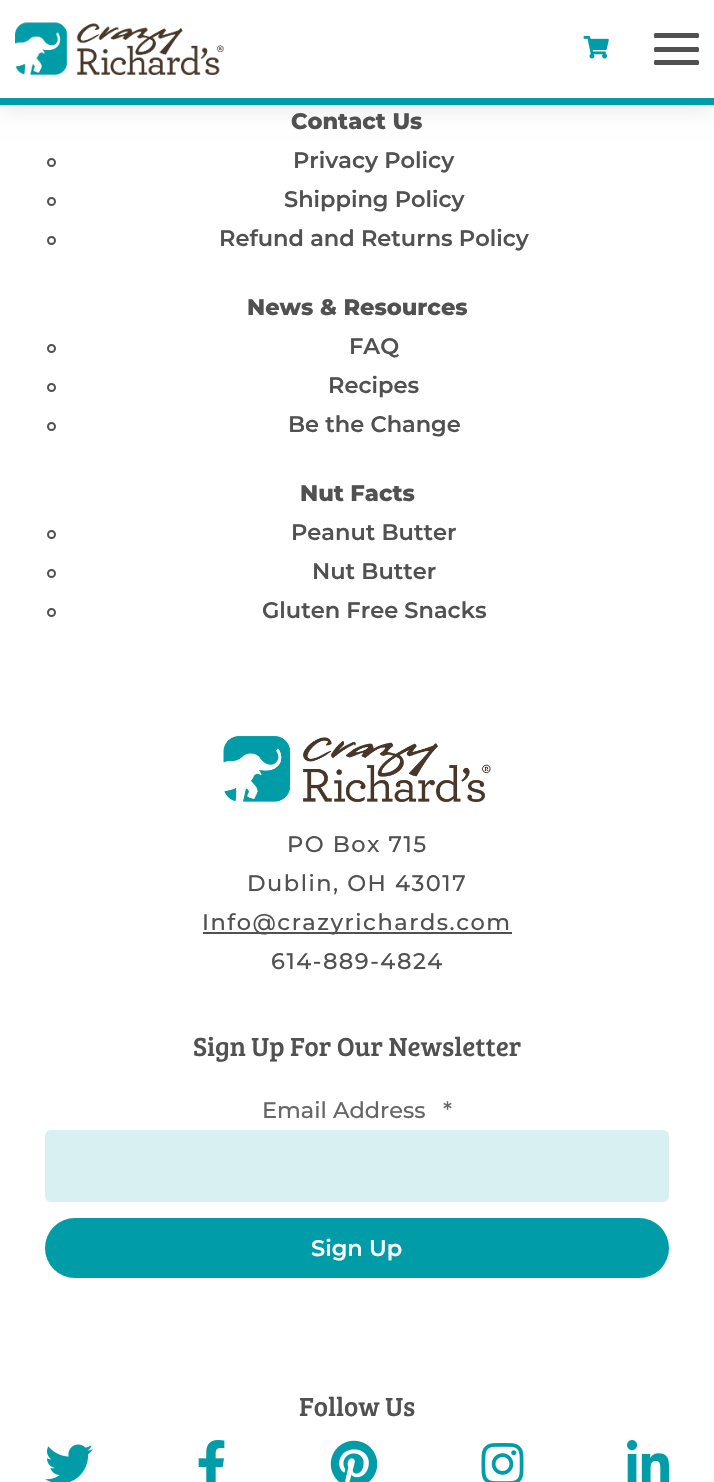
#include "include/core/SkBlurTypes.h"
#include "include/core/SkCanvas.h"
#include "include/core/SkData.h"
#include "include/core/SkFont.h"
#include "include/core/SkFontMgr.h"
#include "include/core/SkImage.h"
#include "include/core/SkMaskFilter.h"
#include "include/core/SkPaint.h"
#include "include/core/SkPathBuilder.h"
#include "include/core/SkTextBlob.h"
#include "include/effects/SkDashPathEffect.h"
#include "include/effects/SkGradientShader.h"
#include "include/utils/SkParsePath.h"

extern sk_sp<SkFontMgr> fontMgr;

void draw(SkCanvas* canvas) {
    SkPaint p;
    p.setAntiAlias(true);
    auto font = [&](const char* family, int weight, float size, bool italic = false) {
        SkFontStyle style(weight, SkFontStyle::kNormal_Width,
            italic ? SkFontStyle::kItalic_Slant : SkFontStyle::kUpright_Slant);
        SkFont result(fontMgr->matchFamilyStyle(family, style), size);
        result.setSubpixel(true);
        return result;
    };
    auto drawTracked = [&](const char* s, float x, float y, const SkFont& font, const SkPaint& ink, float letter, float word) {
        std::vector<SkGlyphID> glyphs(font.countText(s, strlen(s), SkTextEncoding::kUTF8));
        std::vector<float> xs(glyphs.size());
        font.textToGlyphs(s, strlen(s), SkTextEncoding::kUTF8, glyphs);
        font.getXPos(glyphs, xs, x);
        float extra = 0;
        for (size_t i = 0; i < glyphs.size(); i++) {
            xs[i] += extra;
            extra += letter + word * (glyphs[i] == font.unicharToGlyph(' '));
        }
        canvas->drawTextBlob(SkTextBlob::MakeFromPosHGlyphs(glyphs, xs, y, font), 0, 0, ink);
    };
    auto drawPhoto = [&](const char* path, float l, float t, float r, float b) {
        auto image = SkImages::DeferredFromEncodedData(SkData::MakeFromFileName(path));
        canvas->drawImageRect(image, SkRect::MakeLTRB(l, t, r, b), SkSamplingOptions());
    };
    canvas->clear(0xFFFFFFFF);
    p.setColor(0x1A000000);
    p.setMaskFilter(SkMaskFilter::MakeBlur(kNormal_SkBlurStyle, 11));
    canvas->drawRect(SkRect::MakeLTRB(0, 3, 714, 108), p);
    p.setMaskFilter(nullptr);
    p.setColor(0xFFFFFFFF);
    canvas->drawRect(SkRect::MakeLTRB(0, 0, 714, 98), p);
    p.setColor(0xFF009CA7);
    canvas->drawRect(SkRect::MakeLTRB(0, 98, 714, 105), p);
    drawPhoto("media/1.png", 15, 22, 224, 75);
    drawPhoto("media/2.png", 583, 36, 609, 59);
    p.setColor(0xFF515151);
    canvas->drawRoundRect(SkRect::MakeLTRB(654, 33, 699, 38), 1.5f, 1.5f, p);
    canvas->drawRoundRect(SkRect::MakeLTRB(654, 47, 699, 52), 1.5f, 1.5f, p);
    canvas->drawRoundRect(SkRect::MakeLTRB(654, 60, 699, 65), 1.5f, 1.5f, p);
    auto font1 = font("Montserrat", 800, 22.5f);
    canvas->drawString("Contact Us", 291, 129, font1, p);
    p.setStyle(SkPaint::kStroke_Style);
    p.setStrokeWidth(2);
    canvas->drawCircle(51.5f, 162.5f, 3.5f, p);
    auto font2 = font("Montserrat", 600, 22.5f);
    p.setStyle(SkPaint::kFill_Style);
    canvas->drawString("Privacy Policy", 293, 168, font2, p);
    p.setStyle(SkPaint::kStroke_Style);
    canvas->drawCircle(51.5f, 201.5f, 3.5f, p);
    p.setStyle(SkPaint::kFill_Style);
    canvas->drawString("Shipping Policy", 284, 207, font2, p);
    p.setStyle(SkPaint::kStroke_Style);
    canvas->drawCircle(51.5f, 240.5f, 3.5f, p);
    p.setStyle(SkPaint::kFill_Style);
    canvas->drawString("Refund and Returns Policy", 219, 246, font2, p);
    canvas->drawString("News & Resources", 247, 315, font1, p);
    p.setStyle(SkPaint::kStroke_Style);
    canvas->drawCircle(51.5f, 348.5f, 3.5f, p);
    p.setStyle(SkPaint::kFill_Style);
    canvas->drawString("FAQ", 349, 354, font2, p);
    p.setStyle(SkPaint::kStroke_Style);
    canvas->drawCircle(51.5f, 387.5f, 3.5f, p);
    p.setStyle(SkPaint::kFill_Style);
    canvas->drawString("Recipes", 328, 393, font2, p);
    p.setStyle(SkPaint::kStroke_Style);
    canvas->drawCircle(51.5f, 426.5f, 3.5f, p);
    p.setStyle(SkPaint::kFill_Style);
    canvas->drawString("Be the Change", 288, 432, font2, p);
    canvas->drawString("Nut Facts", 300, 501, font1, p);
    p.setStyle(SkPaint::kStroke_Style);
    canvas->drawCircle(51.5f, 534.5f, 3.5f, p);
    p.setStyle(SkPaint::kFill_Style);
    canvas->drawString("Peanut Butter", 291, 540, font2, p);
    p.setStyle(SkPaint::kStroke_Style);
    canvas->drawCircle(51.5f, 573.5f, 3.5f, p);
    p.setStyle(SkPaint::kFill_Style);
    canvas->drawString("Nut Butter", 312, 579, font2, p);
    p.setStyle(SkPaint::kStroke_Style);
    canvas->drawCircle(51.5f, 612.5f, 3.5f, p);
    p.setStyle(SkPaint::kFill_Style);
    canvas->drawString("Gluten Free Snacks", 262, 618, font2, p);
    drawPhoto("media/3.png", 223, 736, 491, 802);
    auto font3 = font("Montserrat", 500, 22.5f);
    drawTracked("PO Box 715", 287, 852, font3, p, 1.5f, 0);
    drawTracked("Dublin, OH 43017", 247, 891, font3, p, 1.5f, 0);
    canvas->drawRect(SkRect::MakeLTRB(203, 932, 512, 934), p);
    drawTracked("Info@crazyrichards.com", 202, 930, font3, p, 1.5f, 0);
    drawTracked("614-889-4824", 271, 969, font3, p, 1.5f, 0);
    auto font4 = font("Bree Serif", 400, 27);
    canvas->drawString("Sign Up For Our Newsletter", 193, 1056, font4, p);
    p.setColor(0xFF666666);
    canvas->drawString("Email Address", 262, 1118, font3, p);
    canvas->drawString("*", 443, 1118, font3, p);
    p.setColor(0xFFD8F0F2);
    canvas->drawRoundRect(SkRect::MakeLTRB(46, 1131, 668, 1201), 5, 5, p);
    p.setStyle(SkPaint::kStroke_Style);
    canvas->drawRoundRect(SkRect::MakeLTRB(46, 1131, 668, 1201), 5, 5, p);
    p.setStyle(SkPaint::kFill_Style);
    p.setColor(0xFF009CA7);
    canvas->drawRoundRect(SkRect::MakeLTRB(45, 1218, 669, 1278), 30, 30, p);
    p.setColor(0xFFFFFFFF);
    canvas->drawString("Sign Up", 311, 1256, font2, p);
    p.setColor(0xFF515151);
    canvas->drawString("Follow Us", 299, 1416, font4, p);
    drawPhoto("media/4.png", 45, 1444, 93, 1482);
    drawPhoto("media/5.png", 198, 1440, 225, 1482);
    drawPhoto("media/6.png", 330, 1440, 378, 1482);
    drawPhoto("media/7.png", 481, 1443, 524, 1482);
    drawPhoto("media/8.png", 627, 1440, 669, 1482);
}
